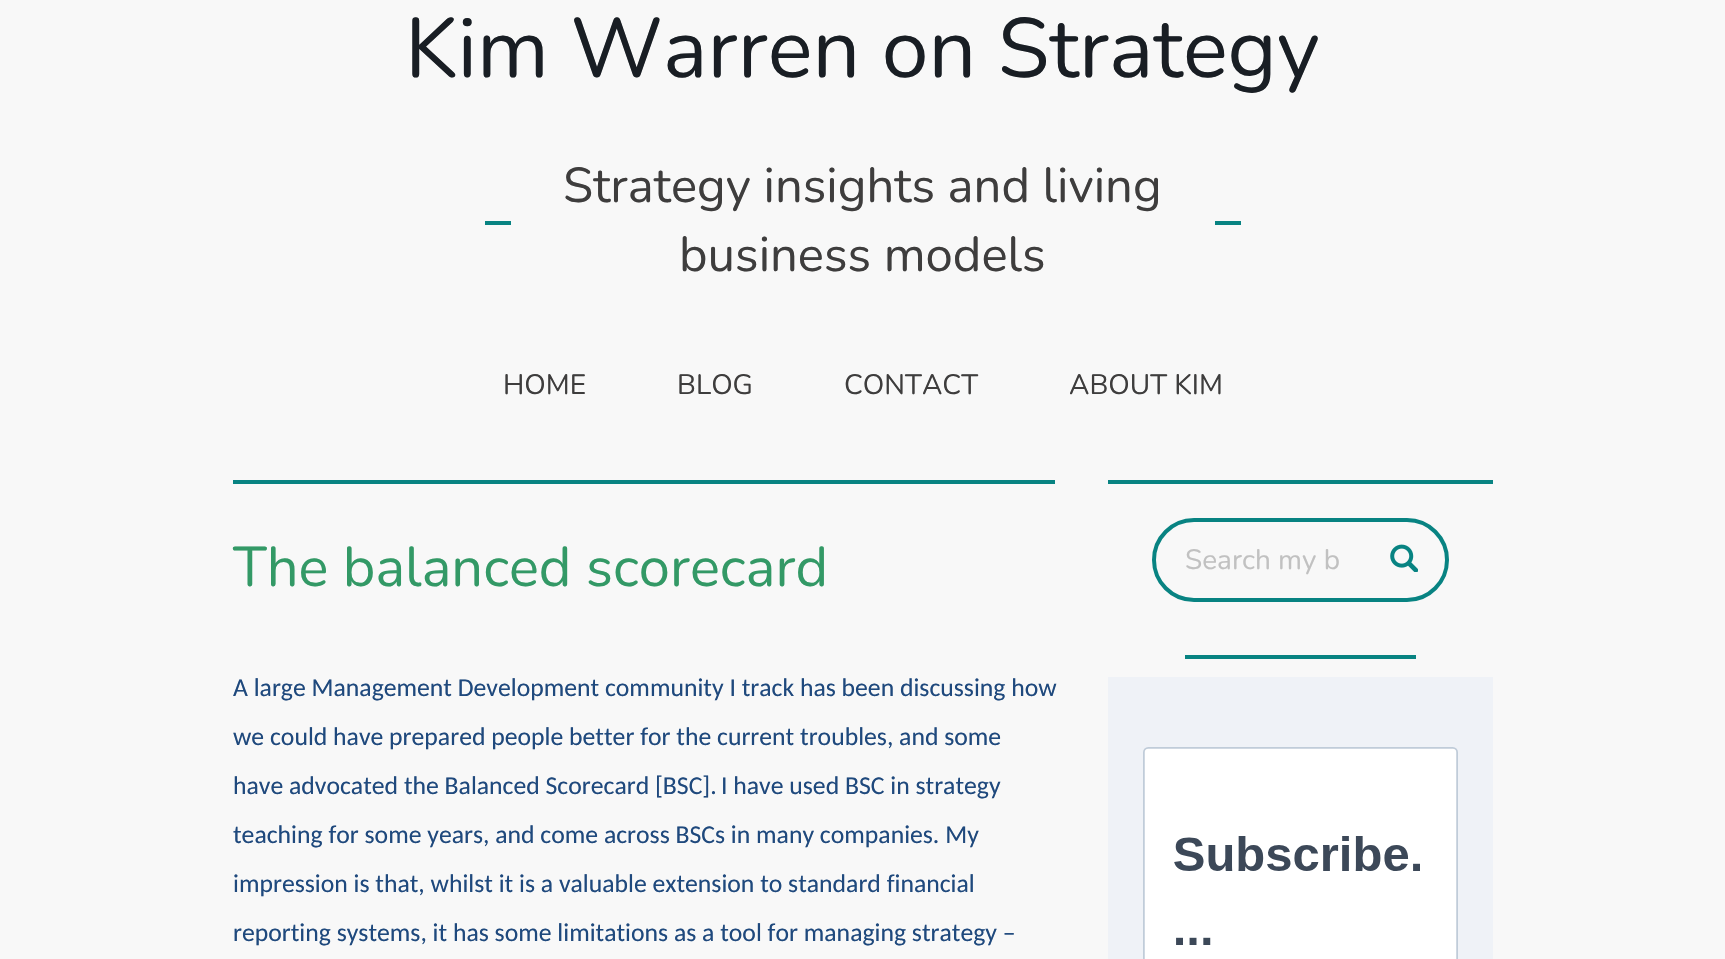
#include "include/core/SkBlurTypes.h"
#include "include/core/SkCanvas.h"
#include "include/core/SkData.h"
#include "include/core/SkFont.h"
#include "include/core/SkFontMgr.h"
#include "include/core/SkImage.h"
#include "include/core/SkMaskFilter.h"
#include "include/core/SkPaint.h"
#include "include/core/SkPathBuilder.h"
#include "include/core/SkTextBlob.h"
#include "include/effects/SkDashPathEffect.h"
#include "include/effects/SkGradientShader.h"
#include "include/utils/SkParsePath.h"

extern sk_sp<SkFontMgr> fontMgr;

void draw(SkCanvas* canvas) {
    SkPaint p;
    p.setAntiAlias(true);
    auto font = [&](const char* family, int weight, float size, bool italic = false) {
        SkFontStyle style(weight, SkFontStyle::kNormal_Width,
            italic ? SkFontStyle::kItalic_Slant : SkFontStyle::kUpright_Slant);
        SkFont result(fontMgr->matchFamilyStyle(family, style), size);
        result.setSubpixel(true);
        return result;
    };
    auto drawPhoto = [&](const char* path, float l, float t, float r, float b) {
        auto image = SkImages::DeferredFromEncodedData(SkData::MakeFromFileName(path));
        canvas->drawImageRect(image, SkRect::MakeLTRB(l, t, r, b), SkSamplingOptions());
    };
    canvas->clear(0xFFF8F8F8);
    auto font1 = font("Nunito", 400, 84);
    p.setColor(0xFF191E24);
    canvas->drawString("Kim Warren on Strategy", 405, 77, font1, p);
    p.setColor(0xFF088382);
    canvas->drawRect(SkRect::MakeLTRB(485, 221, 511, 225), p);
    auto font2 = font("Nunito", 400, 49);
    p.setColor(0xFF3E3D3D);
    canvas->drawString("Strategy insights and living", 563, 202, font2, p);
    canvas->drawString("business models", 679, 271, font2, p);
    p.setColor(0xFF088382);
    canvas->drawRect(SkRect::MakeLTRB(1215, 221, 1241, 225), p);
    auto font3 = font("Nunito", 400, 28);
    p.setColor(0xFF3E3D3D);
    {
        const struct { const char* s; float x, y; } items[] = {
            {"HOME", 503, 394},
            {"BLOG", 677, 394},
            {"CONTACT", 844, 394},
            {"ABOUT KIM", 1069, 394},
        };
        for (auto [s, x, y] : items) {
            canvas->drawString(s, x, y, font3, p);
        }
    }
    p.setColor(0xFF088382);
    canvas->drawRect(SkRect::MakeLTRB(233, 480, 1055, 484), p);
    auto font4 = font("Nunito", 400, 56);
    p.setColor(0xFF339966);
    canvas->drawString("The balanced scorecard", 233, 586, font4, p);
    auto font5 = font("Carlito", 400, 25.7f);
    p.setColor(0xFF1F497D);
    {
        const struct { const char* s; float x, y; } items[] = {
            {"A large Management Development community I track has been discussing how", 233, 696},
            {"we could have prepared people better for the current troubles, and some", 233, 745},
            {"have advocated the Balanced Scorecard [BSC].", 233, 794},
            {"I have used BSC in strategy", 721, 794},
            {"teaching for some years, and come across BSCs in many companies. My", 233, 843},
            {"impression is that, whilst it is a valuable extension to standard financial", 233, 892},
            {"reporting systems, it has some limitations as a tool for managing strategy –", 233, 941},
        };
        for (auto [s, x, y] : items) {
            canvas->drawString(s, x, y, font5, p);
        }
    }
    p.setColor(0xFF088382);
    canvas->drawRect(SkRect::MakeLTRB(1108, 480, 1493, 484), p);
    p.setStyle(SkPaint::kStroke_Style);
    p.setStrokeWidth(4);
    canvas->drawRoundRect(SkRect::MakeLTRB(1154, 520, 1447, 600), 40, 40, p);
    p.setStyle(SkPaint::kFill_Style);
    p.setColor(0xFFC1C1C1);
    canvas->drawString("Search my b", 1185, 569, font3, p);
    drawPhoto("media/1.png", 1390, 544, 1418, 572);
    p.setColor(0xFF088382);
    canvas->drawRect(SkRect::MakeLTRB(1185, 655, 1416, 659), p);
    drawPhoto("media/2.png", 1108, 677, 1493, 959);
}
